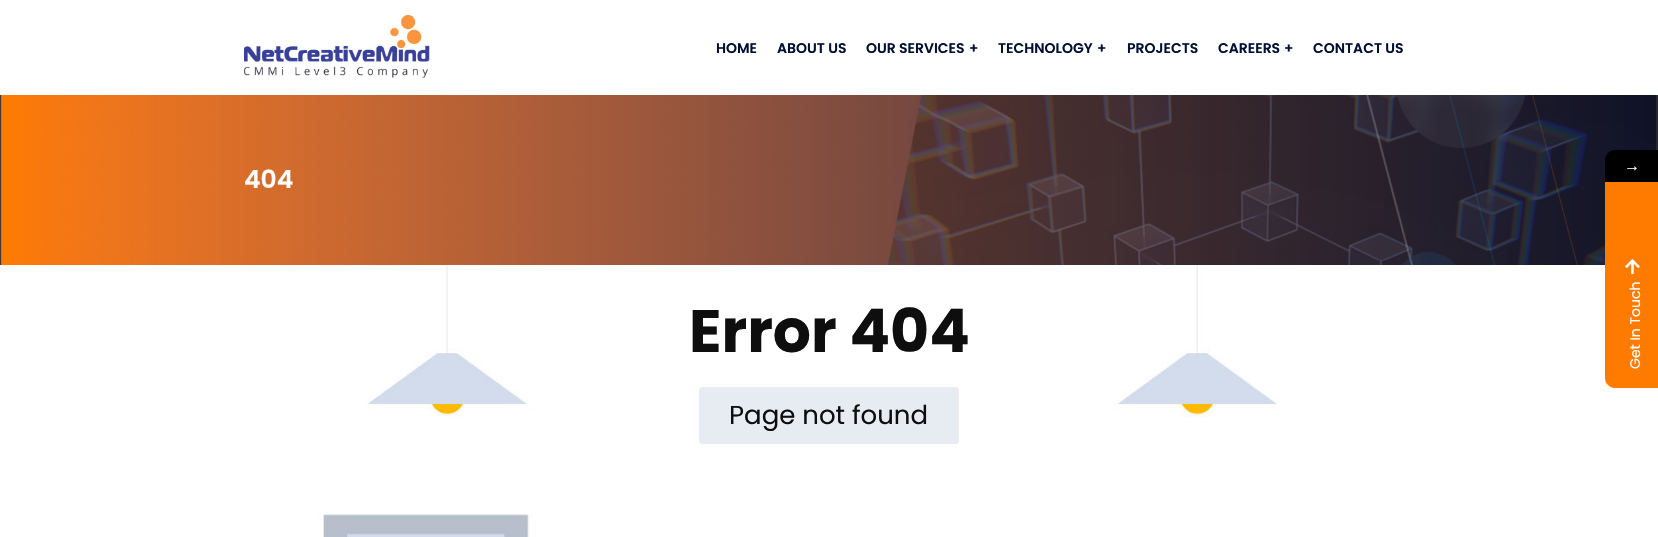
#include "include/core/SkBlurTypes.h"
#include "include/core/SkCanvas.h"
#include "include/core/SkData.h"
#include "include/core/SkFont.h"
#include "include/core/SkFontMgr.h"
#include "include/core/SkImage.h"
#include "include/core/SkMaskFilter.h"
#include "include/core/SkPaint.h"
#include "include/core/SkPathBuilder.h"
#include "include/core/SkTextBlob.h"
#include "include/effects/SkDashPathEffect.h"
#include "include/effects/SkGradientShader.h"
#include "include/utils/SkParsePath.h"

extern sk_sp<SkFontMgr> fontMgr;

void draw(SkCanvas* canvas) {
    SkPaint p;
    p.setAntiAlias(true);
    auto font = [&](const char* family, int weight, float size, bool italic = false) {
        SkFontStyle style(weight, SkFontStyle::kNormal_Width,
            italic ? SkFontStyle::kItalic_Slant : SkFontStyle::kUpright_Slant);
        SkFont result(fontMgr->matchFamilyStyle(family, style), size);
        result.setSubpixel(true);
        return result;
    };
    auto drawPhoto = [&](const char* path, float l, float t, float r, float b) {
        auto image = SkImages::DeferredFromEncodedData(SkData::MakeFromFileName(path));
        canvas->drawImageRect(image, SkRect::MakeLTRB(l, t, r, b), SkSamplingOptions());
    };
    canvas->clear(0xFFFFFFFF);
    drawPhoto("media/1.png", 244, 15, 430, 78);
    auto font1 = font("Poppins", 600, 14);
    p.setColor(0xFF011032);
    {
        const struct { const char* s; float x, y; } items[] = {
            {"HOME", 716, 53},
            {"ABOUT US", 777, 53},
            {"OUR SERVICES", 866, 53},
            {"+", 969, 53},
            {"TECHNOLOGY", 998, 53},
            {"+", 1097, 53},
            {"PROJECTS", 1127, 53},
            {"CAREERS", 1218, 53},
            {"+", 1284, 53},
            {"CONTACT US", 1313, 53},
        };
        for (auto [s, x, y] : items) {
            canvas->drawString(s, x, y, font1, p);
        }
    }
    drawPhoto("media/2.png", 0, 95, 1658, 265);
    auto font2 = font("Poppins", 600, 25);
    p.setColor(0xFFFFFFFF);
    canvas->drawString("404", 244, 188, font2, p);
    drawPhoto("media/3.png", 319, 265, 1278, 537);
    auto font3 = font("Poppins", 700, 60);
    p.setColor(0xFF0E0E0E);
    canvas->drawString("Error 404", 689, 352, font3, p);
    p.setColor(0xFFE7ECF3);
    canvas->drawRoundRect(SkRect::MakeLTRB(699, 387, 959, 444), 4, 4, p);
    auto font4 = font("Poppins", 400, 26);
    p.setColor(0xFF0E0E0E);
    canvas->drawString("Page not found", 729, 424, font4, p);
    p.setColor(0xFF000000);
    canvas->drawPath(SkPathBuilder().moveTo(1615, 150).lineTo(1658, 150).lineTo(1658, 182).lineTo(1605, 182).lineTo(1605, 160).cubicTo(1605, 154.5f, 1609.5f, 150, 1615, 150).close().detach(), p);
    auto font5 = font("Liberation Serif", 400, 16);
    p.setColor(0xFFFFFFFF);
    canvas->drawString("→", 1624, 171, font5, p);
    p.setColor(0xFFFF7B00);
    canvas->drawPath(SkPathBuilder().moveTo(1605, 182).lineTo(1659, 182).lineTo(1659, 388).lineTo(1615, 388).cubicTo(1609.5f, 388, 1605, 383.5f, 1605, 378).close().detach(), p);
    drawPhoto("media/4.png", 1625, 259, 1640, 275);
    auto font6 = font("Poppins", 400, 14);
    p.setColor(0xFFFFFFFF);
    canvas->save();
    canvas->rotate(-90, 1640, 369);
    canvas->drawString("Get In Touch", 1640, 369, font6, p);
    canvas->restore();
}
